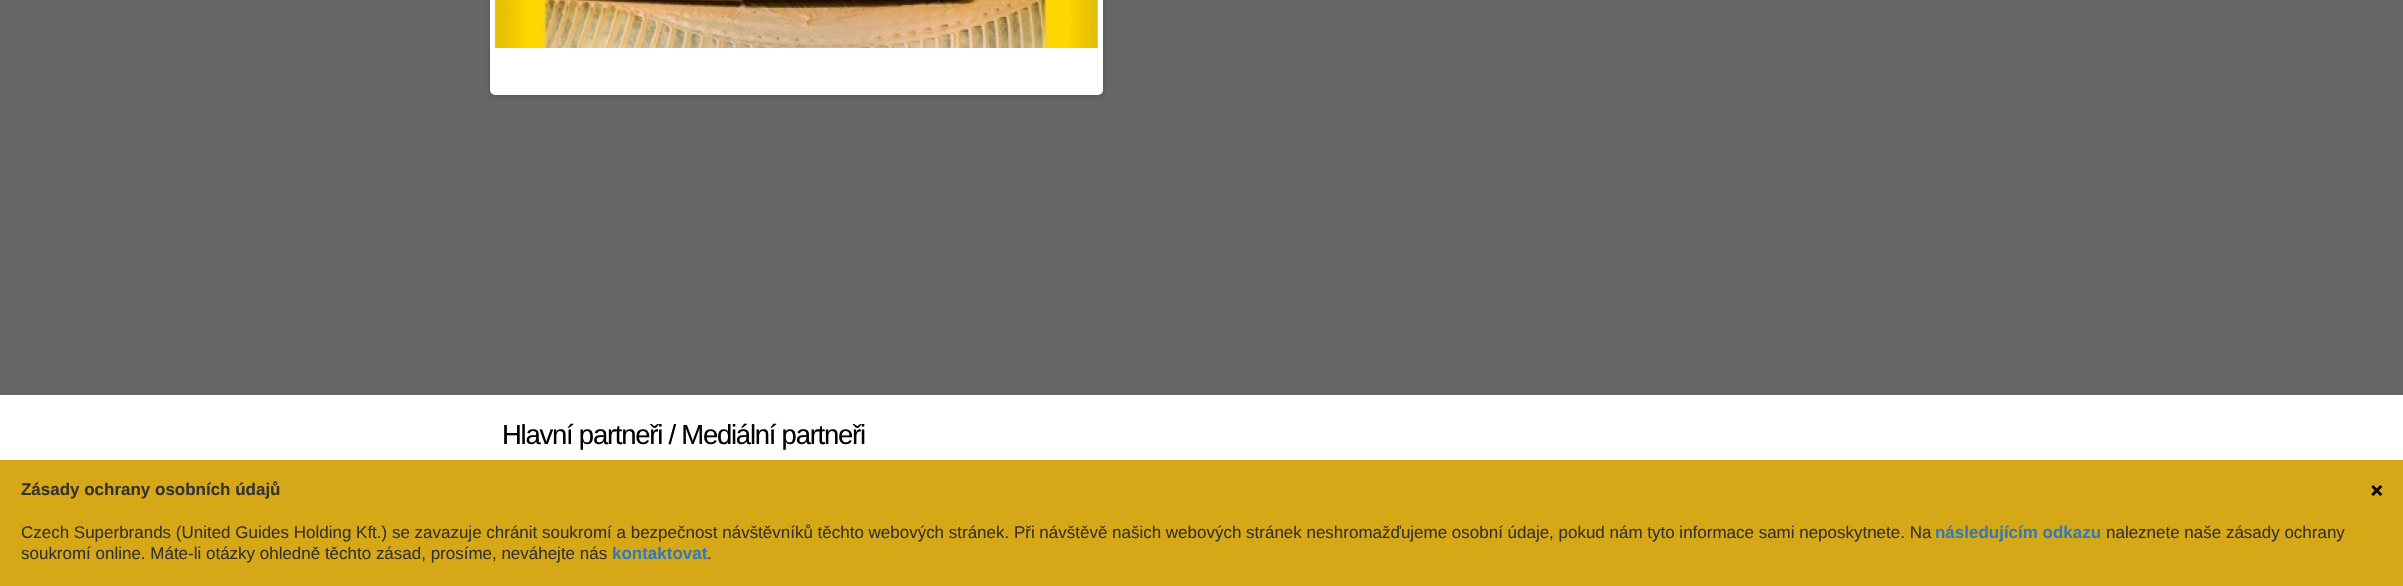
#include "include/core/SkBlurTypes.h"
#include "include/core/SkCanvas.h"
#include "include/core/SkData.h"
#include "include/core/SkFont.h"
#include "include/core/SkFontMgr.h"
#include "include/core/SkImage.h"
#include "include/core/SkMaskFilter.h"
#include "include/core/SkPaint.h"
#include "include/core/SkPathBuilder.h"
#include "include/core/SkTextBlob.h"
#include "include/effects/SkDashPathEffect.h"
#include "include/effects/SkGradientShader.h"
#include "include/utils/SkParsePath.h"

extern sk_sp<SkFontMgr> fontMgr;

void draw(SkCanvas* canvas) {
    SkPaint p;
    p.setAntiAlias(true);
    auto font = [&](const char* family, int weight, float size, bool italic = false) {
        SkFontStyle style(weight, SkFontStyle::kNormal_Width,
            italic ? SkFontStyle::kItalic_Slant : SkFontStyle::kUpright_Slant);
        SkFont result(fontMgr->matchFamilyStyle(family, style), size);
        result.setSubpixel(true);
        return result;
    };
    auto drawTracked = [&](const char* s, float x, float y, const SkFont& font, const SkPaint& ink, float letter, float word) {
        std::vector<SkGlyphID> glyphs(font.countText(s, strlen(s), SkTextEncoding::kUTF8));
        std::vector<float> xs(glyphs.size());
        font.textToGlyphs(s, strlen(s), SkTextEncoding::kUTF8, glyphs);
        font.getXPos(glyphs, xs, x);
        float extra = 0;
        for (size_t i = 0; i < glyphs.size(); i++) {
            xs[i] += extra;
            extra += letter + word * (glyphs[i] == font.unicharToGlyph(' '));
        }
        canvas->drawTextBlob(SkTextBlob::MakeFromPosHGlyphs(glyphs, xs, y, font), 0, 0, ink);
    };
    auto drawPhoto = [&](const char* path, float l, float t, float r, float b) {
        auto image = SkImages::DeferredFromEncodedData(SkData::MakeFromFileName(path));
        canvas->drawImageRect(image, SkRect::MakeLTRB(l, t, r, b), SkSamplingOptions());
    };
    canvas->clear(0xFF666666);
    p.setColor(0x33000000);
    p.setMaskFilter(SkMaskFilter::MakeBlur(kNormal_SkBlurStyle, 2.5f));
    canvas->drawRoundRect(SkRect::MakeLTRB(490, -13, 1103, 96), 5, 5, p);
    p.setMaskFilter(nullptr);
    p.setColor(0xFFFFFFFF);
    canvas->drawRoundRect(SkRect::MakeLTRB(492.5f, -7.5f, 1100.5f, 92.5f), 2.5f, 2.5f, p);
    p.setStyle(SkPaint::kStroke_Style);
    p.setStrokeWidth(5);
    canvas->drawRoundRect(SkRect::MakeLTRB(492.5f, -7.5f, 1100.5f, 92.5f), 2.5f, 2.5f, p);
    drawPhoto("media/1.png", 495, 0, 1098, 48);
    drawPhoto("media/2.png", 1097, 0, 1098, 48);
    p.setStyle(SkPaint::kFill_Style);
    canvas->drawRect(SkRect::MakeLTRB(0, 395, 2403, 460), p);
    auto font1 = font("Liberation Sans", 400, 27.5f);
    p.setColor(0xFF000000);
    drawTracked("Hlavní partneři / Mediální partneři", 502, 444, font1, p, -1.25f, 0);
    p.setColor(0xFFD6A817);
    canvas->drawRect(SkRect::MakeLTRB(0, 460, 2403, 586), p);
    auto font2 = font("Liberation Sans", 700, 16.98f);
    p.setColor(0xFF333333);
    canvas->drawString("Zásady ochrany osobních údajů", 21, 495, font2, p);
    drawPhoto("media/3.png", 2371, 485, 2383, 496);
    auto font3 = font("Liberation Sans", 400, 16.98f);
    canvas->drawString("Czech Superbrands (United Guides Holding Kft.) se zavazuje chránit soukromí a bezpečnost návštěvníků těchto webových stránek. Při návštěvě našich webových stránek neshromažďujeme osobní údaje, pokud nám tyto informace sami neposkytnete. Na", 21, 538, font3, p);
    p.setColor(0xFF337AB7);
    canvas->drawString("následujícím odkazu", 1935, 538, font2, p);
    p.setColor(0xFF333333);
    canvas->drawString("naleznete naše zásady ochrany", 2106, 538, font3, p);
    canvas->drawString("soukromí online. Máte-li otázky ohledně těchto zásad, prosíme, neváhejte nás", 21, 559, font3, p);
    p.setColor(0xFF337AB7);
    canvas->drawString("kontaktovat", 612, 559, font2, p);
    p.setColor(0xFF333333);
    canvas->drawString(".", 707, 559, font3, p);
}
